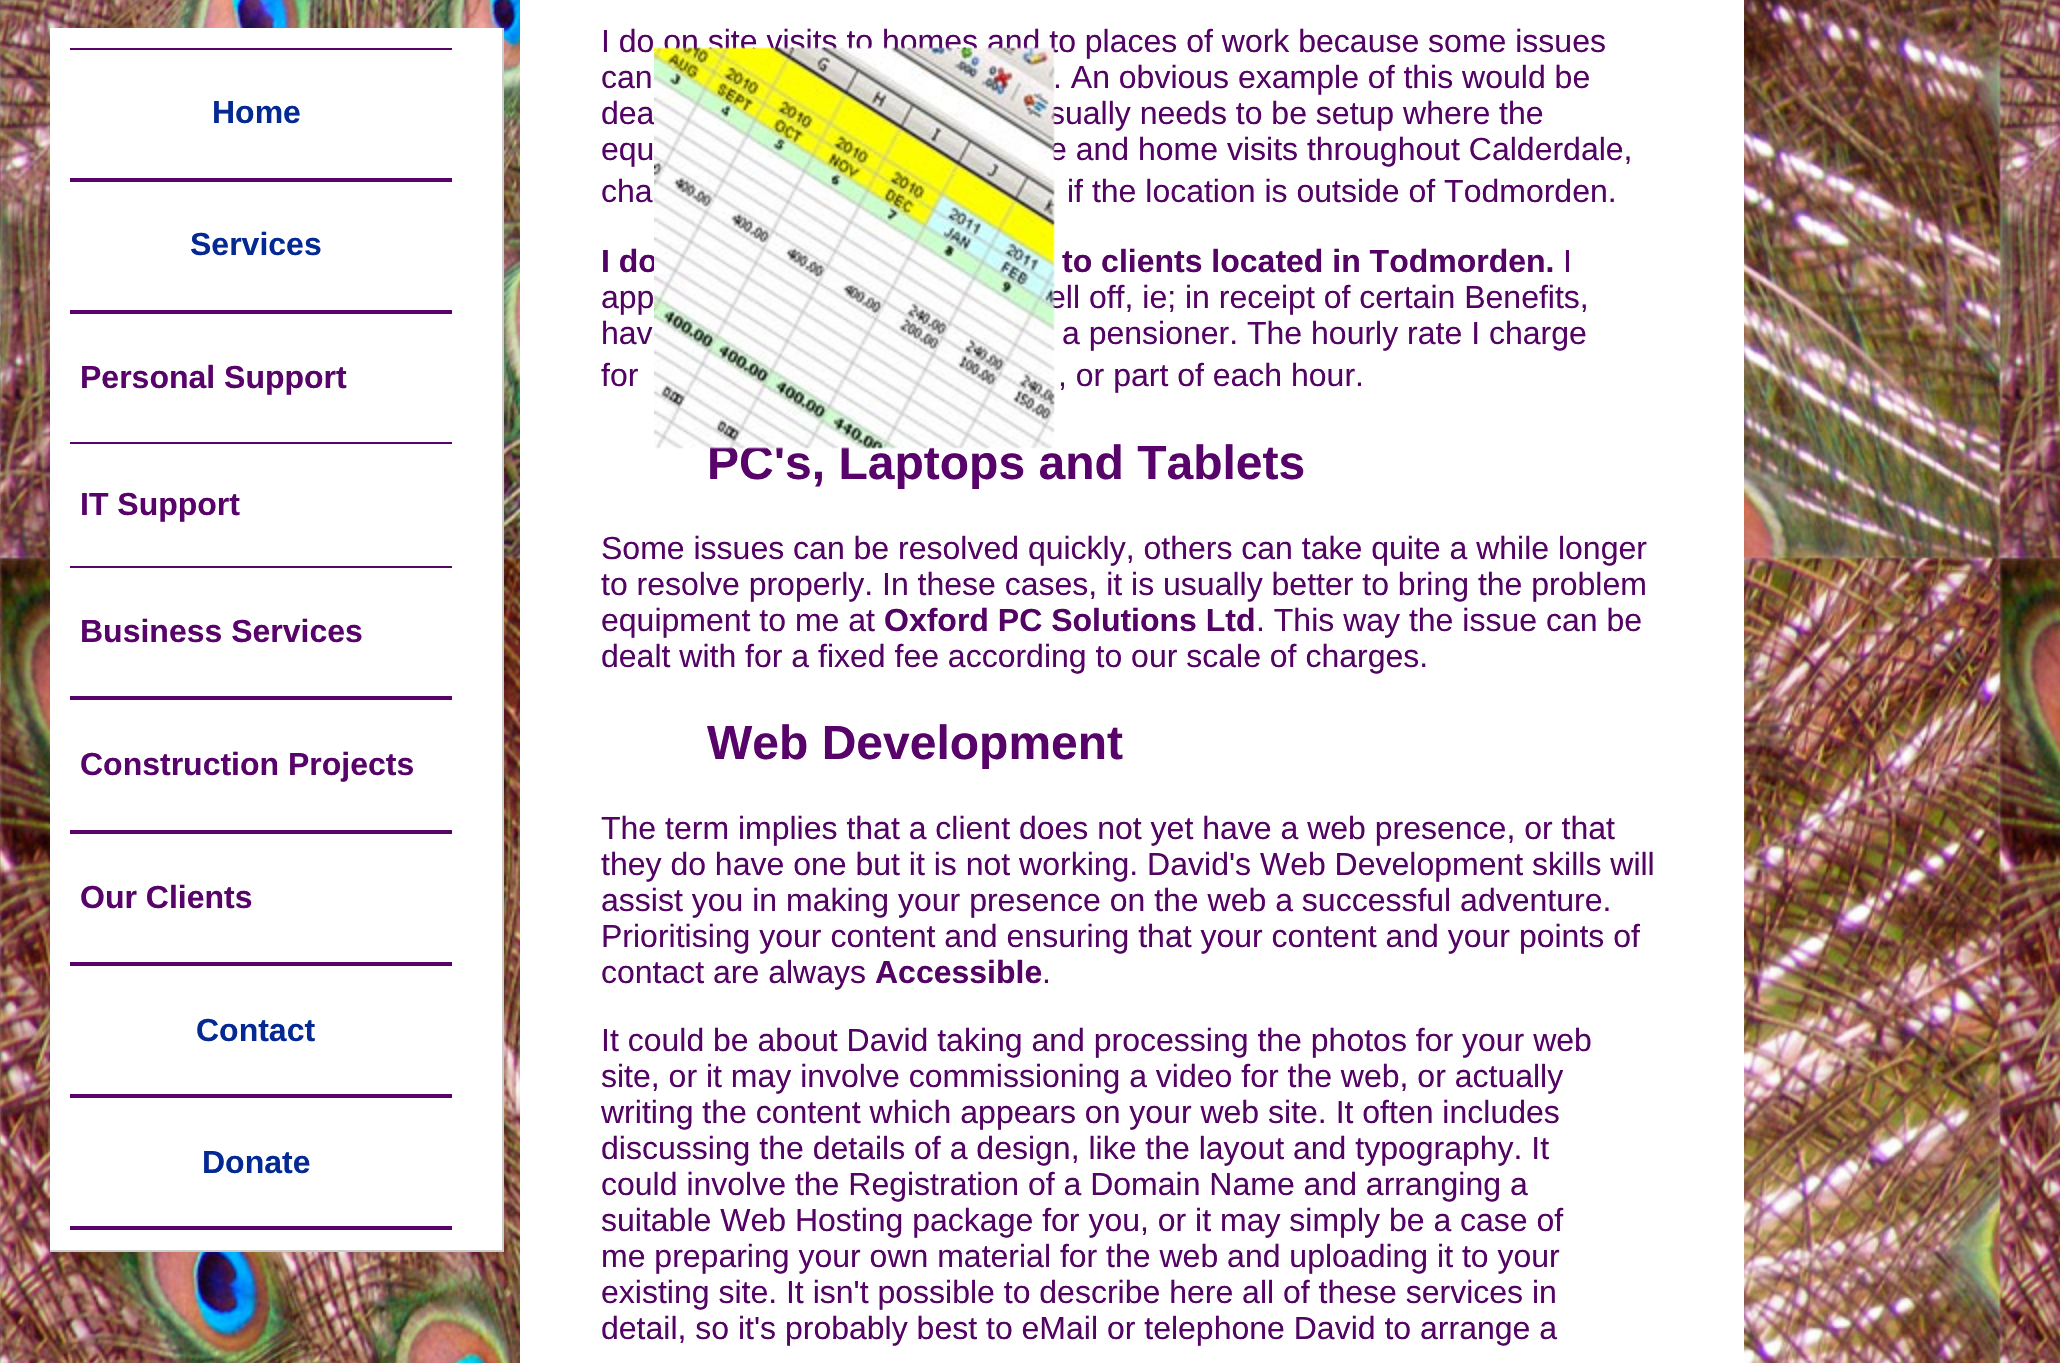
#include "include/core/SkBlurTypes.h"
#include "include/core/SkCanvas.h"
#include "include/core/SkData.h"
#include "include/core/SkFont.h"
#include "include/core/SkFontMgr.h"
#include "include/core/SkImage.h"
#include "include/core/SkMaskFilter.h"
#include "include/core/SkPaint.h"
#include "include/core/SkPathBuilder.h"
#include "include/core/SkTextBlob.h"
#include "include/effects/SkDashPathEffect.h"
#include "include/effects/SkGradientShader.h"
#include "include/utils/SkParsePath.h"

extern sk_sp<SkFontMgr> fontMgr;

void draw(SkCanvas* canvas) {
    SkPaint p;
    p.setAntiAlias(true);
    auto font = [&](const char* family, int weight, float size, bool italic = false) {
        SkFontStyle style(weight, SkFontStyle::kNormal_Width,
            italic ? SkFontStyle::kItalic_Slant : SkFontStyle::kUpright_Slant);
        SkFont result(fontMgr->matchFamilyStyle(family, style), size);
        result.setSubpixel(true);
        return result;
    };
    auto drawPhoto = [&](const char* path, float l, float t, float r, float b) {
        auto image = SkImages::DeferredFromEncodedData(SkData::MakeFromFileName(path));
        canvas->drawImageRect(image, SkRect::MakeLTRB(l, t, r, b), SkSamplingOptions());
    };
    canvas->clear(0xFFFFFFFF);
    drawPhoto("media/1.png", 0, 0, 2060, 1363);
    {
        const struct { float l, t, r, b; SkColor color; } items[] = {
            {50, 28, 502, 1250, 0xFFFFFFFF},
            {502, 28, 504, 1252, 0xFFCCCCCC},
            {50, 1250, 504, 1252, 0xFFCCCCCC},
            {70, 1226, 452, 1230, 0xFF58036A},
            {70, 48, 452, 50, 0xFF58036A},
            {70, 178, 452, 182, 0xFF58036A},
        };
        for (auto [l, t, r, b, color] : items) {
            p.setColor(color);
            canvas->drawRect(SkRect::MakeLTRB(l, t, r, b), p);
        }
    }
    auto font1 = font("Liberation Sans", 700, 32);
    p.setColor(0xFF042993);
    canvas->drawString("Home", 212, 123, font1, p);
    p.setColor(0xFF58036A);
    canvas->drawRect(SkRect::MakeLTRB(70, 310, 452, 314), p);
    p.setColor(0xFF042993);
    canvas->drawString("Services", 190, 255, font1, p);
    p.setColor(0xFF58036A);
    canvas->drawRect(SkRect::MakeLTRB(70, 442, 452, 444), p);
    canvas->drawString("Personal Support", 80, 388, font1, p);
    canvas->drawString("IT Support", 80, 515, font1, p);
    canvas->drawRect(SkRect::MakeLTRB(70, 566, 452, 568), p);
    canvas->drawRect(SkRect::MakeLTRB(70, 696, 452, 700), p);
    canvas->drawString("Business Services", 80, 642, font1, p);
    canvas->drawRect(SkRect::MakeLTRB(70, 830, 452, 834), p);
    canvas->drawString("Construction Projects", 80, 775, font1, p);
    canvas->drawRect(SkRect::MakeLTRB(70, 962, 452, 966), p);
    canvas->drawString("Our Clients", 80, 908, font1, p);
    canvas->drawRect(SkRect::MakeLTRB(70, 1094, 452, 1098), p);
    p.setColor(0xFF042993);
    canvas->drawString("Contact", 196, 1041, font1, p);
    canvas->drawString("Donate", 202, 1173, font1, p);
    p.setColor(0xFFFFFFFF);
    canvas->drawRect(SkRect::MakeLTRB(520, 0, 1744, 1363), p);
    auto font2 = font("Liberation Sans", 400, 32);
    p.setColor(0xFF530363);
    {
        const struct { const char* s; float x, y; } items[] = {
            {"I do on site visits to homes and to places of work because some issues", 601, 52},
            {"can", 601, 88},
            {"dea", 601, 124},
            {"sually needs to be setup where the", 1049, 124},
            {"e and home visits throughout Calderdale,", 1049, 160},
        };
        for (auto [s, x, y] : items) {
            canvas->drawString(s, x, y, font2, p);
        }
    }
    canvas->drawString("I do", 601, 272, font1, p);
    canvas->drawString("ell off, ie; in receipt of certain Benefits,", 1048, 308, font2, p);
    auto font3 = font("Liberation Sans", 700, 48);
    p.setColor(0xFF58036A);
    canvas->drawString("PC's, Laptops and Tablets", 707, 479, font3, p);
    drawPhoto("media/2.png", 654, 47, 1055, 449);
    p.setColor(0xFF530363);
    {
        const struct { const char* s; float x, y; } items[] = {
            {". An obvious example of this would be", 1053, 88},
            {"equ", 601, 160},
            {"cha", 601, 202},
            {"if the location is outside of Todmorden.", 1067, 202},
        };
        for (auto [s, x, y] : items) {
            canvas->drawString(s, x, y, font2, p);
        }
    }
    canvas->drawString("to clients located in Todmorden.", 1062, 272, font1, p);
    {
        const struct { const char* s; float x, y; } items[] = {
            {"I", 1563, 272},
            {"app", 601, 308},
            {"hav", 601, 344},
            {"a pensioner. The hourly rate I charge", 1062, 344},
            {"for", 601, 386},
            {", or part of each hour.", 1058, 386},
            {"Some issues can be resolved quickly, others can take quite a while longer", 601, 559},
            {"to resolve properly. In these cases, it is usually better to bring the problem", 601, 595},
            {"equipment to me at", 601, 631},
        };
        for (auto [s, x, y] : items) {
            canvas->drawString(s, x, y, font2, p);
        }
    }
    canvas->drawString("Oxford PC Solutions Ltd", 884, 631, font1, p);
    canvas->drawString(". This way the issue can be", 1256, 631, font2, p);
    canvas->drawString("dealt with for a fixed fee according to our scale of charges.", 601, 667, font2, p);
    p.setColor(0xFF58036A);
    canvas->drawString("Web Development", 707, 759, font3, p);
    p.setColor(0xFF530363);
    {
        const struct { const char* s; float x, y; } items[] = {
            {"The term implies that a client does not yet have a web presence, or that", 601, 839},
            {"they do have one but it is not working. David's Web Development skills will", 601, 875},
            {"assist you in making your presence on the web a successful adventure.", 601, 911},
            {"Prioritising your content and ensuring that your content and your points of", 601, 947},
            {"contact are always", 601, 983},
        };
        for (auto [s, x, y] : items) {
            canvas->drawString(s, x, y, font2, p);
        }
    }
    canvas->drawString("Accessible", 875, 983, font1, p);
    {
        const struct { const char* s; float x, y; } items[] = {
            {".", 1042, 983},
            {"It could be about David taking and processing the photos for your web", 601, 1051},
            {"site, or it may involve commissioning a video for the web, or actually", 601, 1087},
            {"writing the content which appears on your web site. It often includes", 601, 1123},
            {"discussing the details of a design, like the layout and typography. It", 601, 1159},
            {"could involve the Registration of a Domain Name and arranging a", 601, 1195},
            {"suitable Web Hosting package for you, or it may simply be a case of", 601, 1231},
            {"me preparing your own material for the web and uploading it to your", 601, 1267},
            {"existing site. It isn't possible to describe here all of these services in", 601, 1303},
            {"detail, so it's probably best to eMail or telephone David to arrange a", 601, 1339},
        };
        for (auto [s, x, y] : items) {
            canvas->drawString(s, x, y, font2, p);
        }
    }
}
